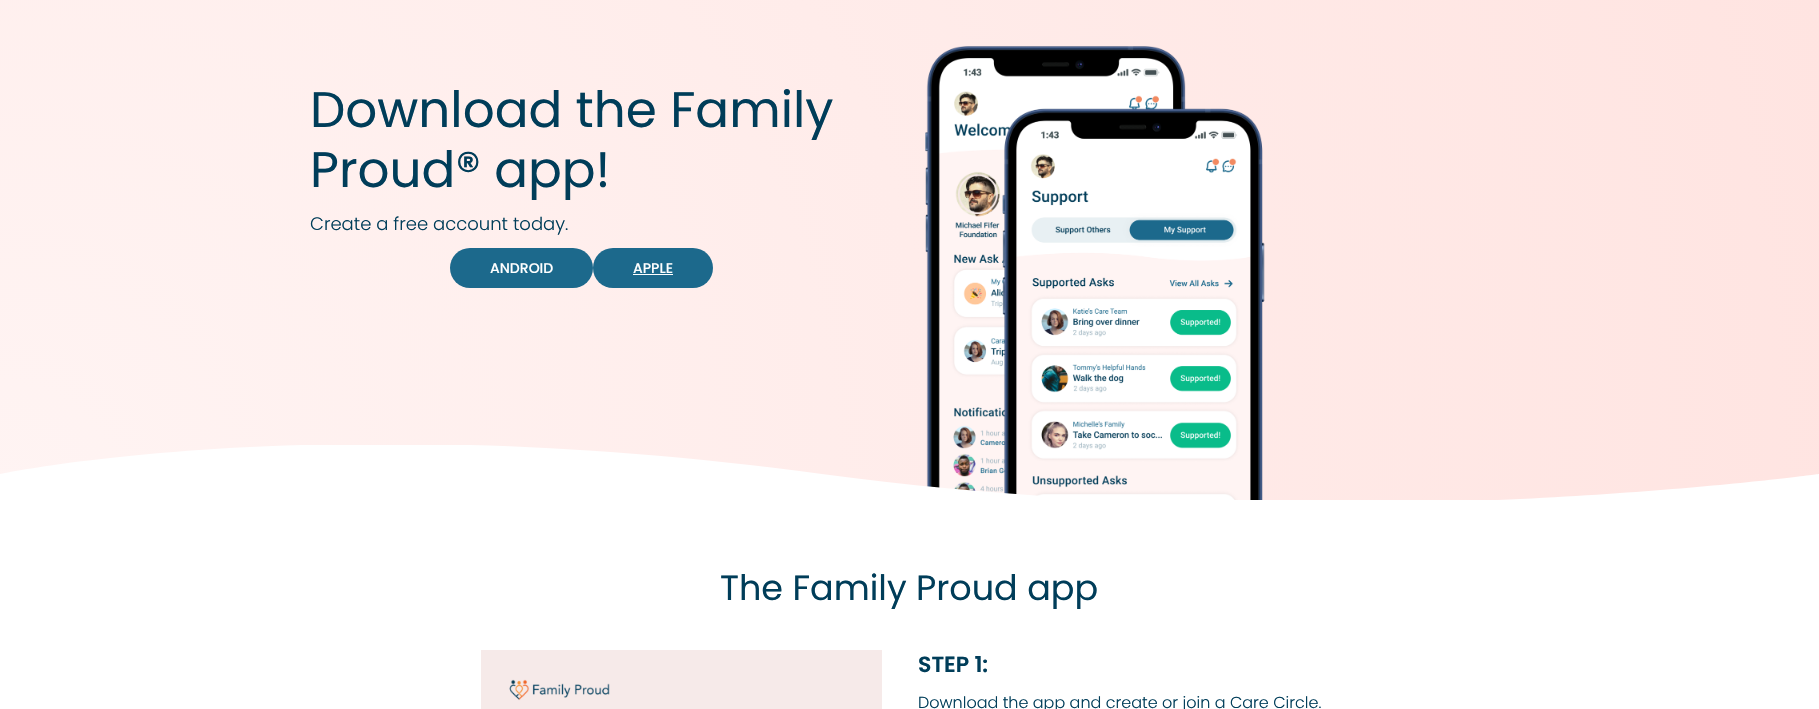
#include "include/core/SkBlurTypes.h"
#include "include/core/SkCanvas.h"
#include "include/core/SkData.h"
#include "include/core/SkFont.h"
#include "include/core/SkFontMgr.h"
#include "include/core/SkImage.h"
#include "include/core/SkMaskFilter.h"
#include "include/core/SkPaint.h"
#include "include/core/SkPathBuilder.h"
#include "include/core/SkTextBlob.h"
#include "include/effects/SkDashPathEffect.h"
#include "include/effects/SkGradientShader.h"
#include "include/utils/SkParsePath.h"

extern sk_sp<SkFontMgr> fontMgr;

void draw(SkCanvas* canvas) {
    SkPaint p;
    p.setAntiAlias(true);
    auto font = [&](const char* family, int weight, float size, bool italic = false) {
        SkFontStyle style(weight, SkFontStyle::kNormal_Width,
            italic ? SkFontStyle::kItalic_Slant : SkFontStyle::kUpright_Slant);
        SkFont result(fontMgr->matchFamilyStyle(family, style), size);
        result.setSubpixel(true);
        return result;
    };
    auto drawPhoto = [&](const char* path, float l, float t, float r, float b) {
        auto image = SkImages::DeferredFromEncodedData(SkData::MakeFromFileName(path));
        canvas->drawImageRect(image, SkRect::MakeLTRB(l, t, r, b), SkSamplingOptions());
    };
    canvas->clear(0xFFFFFFFF);
    drawPhoto("media/1.png", 0, 0, 1819, 500);
    auto font1 = font("Poppins", 400, 50);
    p.setColor(0xFF003D59);
    canvas->drawString("Download the Family", 310, 127, font1, p);
    canvas->drawString("Proud® app!", 310, 187, font1, p);
    auto font2 = font("Poppins", 300, 18);
    canvas->drawString("Create a free account today.", 310, 230, font2, p);
    p.setColor(0xFF1C698C);
    canvas->drawRoundRect(SkRect::MakeLTRB(450, 248, 593, 288), 20, 20, p);
    auto font3 = font("Poppins", 500, 14);
    p.setColor(0xFFFFFFFF);
    canvas->drawString("ANDROID", 490, 273, font3, p);
    p.setColor(0xFF1C698C);
    canvas->drawRoundRect(SkRect::MakeLTRB(593, 248, 713, 288), 20, 20, p);
    p.setColor(0xFFFFFFFF);
    canvas->drawString("APPLE", 633, 273, font3, p);
    canvas->drawRect(SkRect::MakeLTRB(633, 274, 673, 275), p);
    canvas->save();
    canvas->clipRect(SkRect::MakeLTRB(0, 445, 1819, 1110));
    canvas->drawPath(SkPathBuilder().moveTo(0, 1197).lineTo(1819, 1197).lineTo(1819, 474).cubicTo(1819, 474, 1325, 542, 822, 474).cubicTo(319, 406, 0, 474, 0, 474).close().detach(), p);
    canvas->restore();
    auto font4 = font("Poppins", 400, 35);
    p.setColor(0xFF003D59);
    canvas->drawString("The Family Proud app", 720, 600, font4, p);
    drawPhoto("media/2.png", 481, 650, 882, 709);
    auto font5 = font("Poppins", 600, 22);
    canvas->drawString("STEP 1:", 918, 672, font5, p);
    auto font6 = font("Poppins", 300, 16);
    canvas->drawString("Download the app and create or join a Care Circle.", 918, 708, font6, p);
}
